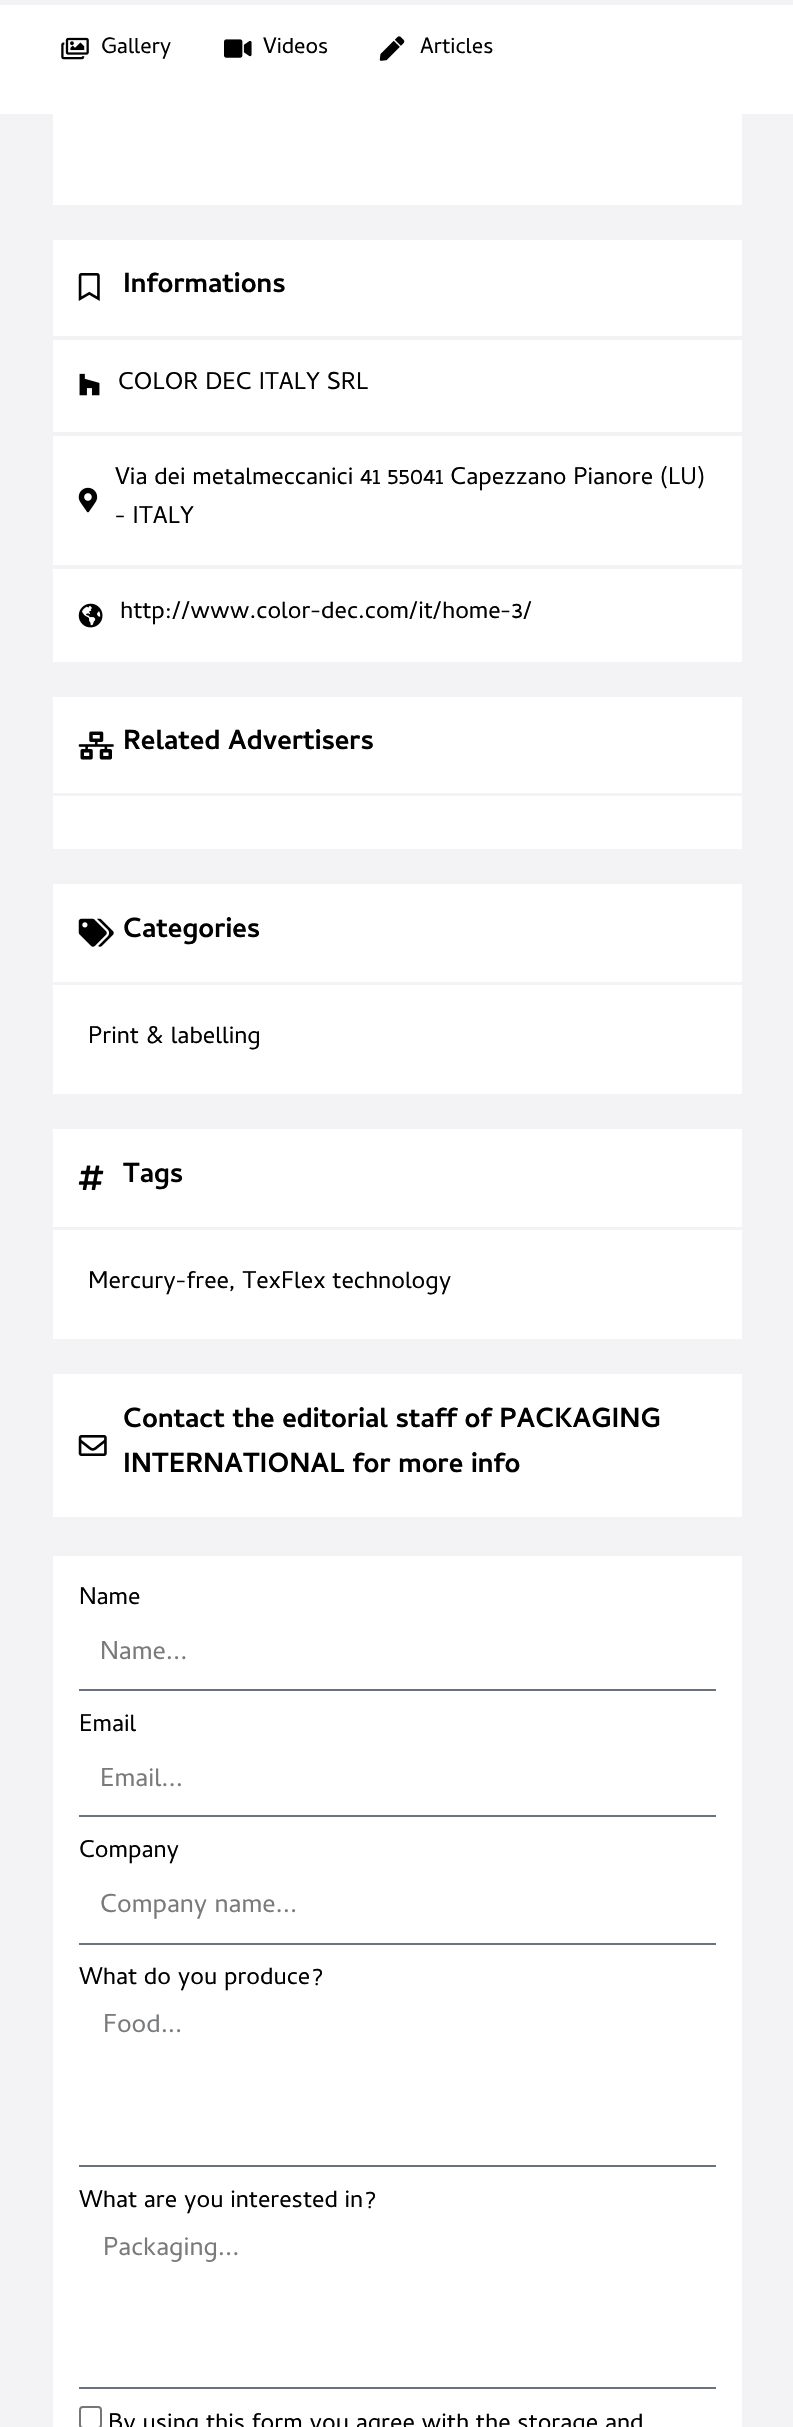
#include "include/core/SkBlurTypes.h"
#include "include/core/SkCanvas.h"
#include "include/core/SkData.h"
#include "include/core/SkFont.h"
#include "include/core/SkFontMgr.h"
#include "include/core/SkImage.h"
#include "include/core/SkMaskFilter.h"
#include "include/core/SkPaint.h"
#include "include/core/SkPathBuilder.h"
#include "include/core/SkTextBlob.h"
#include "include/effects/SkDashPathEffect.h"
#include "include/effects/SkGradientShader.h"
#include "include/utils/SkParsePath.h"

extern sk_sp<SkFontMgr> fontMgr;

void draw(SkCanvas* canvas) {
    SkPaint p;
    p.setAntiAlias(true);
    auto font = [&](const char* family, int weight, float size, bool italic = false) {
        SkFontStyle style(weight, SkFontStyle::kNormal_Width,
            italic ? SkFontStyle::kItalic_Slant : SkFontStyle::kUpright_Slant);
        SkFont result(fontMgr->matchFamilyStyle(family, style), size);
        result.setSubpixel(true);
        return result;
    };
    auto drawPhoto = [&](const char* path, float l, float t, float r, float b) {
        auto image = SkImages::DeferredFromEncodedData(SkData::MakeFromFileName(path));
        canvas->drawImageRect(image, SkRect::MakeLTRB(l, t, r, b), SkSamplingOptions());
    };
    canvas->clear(0xFFF3F3F6);
    p.setColor(0xFFFFFFFF);
    canvas->drawRect(SkRect::MakeLTRB(0, 5, 793, 114), p);
    drawPhoto("media/1.png", 61, 37, 89, 60);
    auto font1 = font("Cambay", 400, 22.5f);
    p.setColor(0xFF000000);
    canvas->drawString("Gallery", 101, 53, font1, p);
    drawPhoto("media/2.png", 224, 39, 252, 58);
    canvas->drawString("Videos", 263, 53, font1, p);
    drawPhoto("media/3.png", 379, 36, 405, 61);
    canvas->drawString("Articles", 420, 53, font1, p);
    p.setColor(0xFFFFFFFF);
    canvas->drawRect(SkRect::MakeLTRB(53, 114, 742, 205), p);
    canvas->drawRect(SkRect::MakeLTRB(53, 240, 742, 336), p);
    drawPhoto("media/4.png", 78, 273, 100, 301);
    auto font2 = font("Cambay", 700, 28);
    p.setColor(0xFF000000);
    canvas->drawString("Informations", 123, 292, font2, p);
    p.setColor(0xFFFFFFFF);
    canvas->drawRect(SkRect::MakeLTRB(53, 340, 742, 432), p);
    drawPhoto("media/5.png", 79, 373, 100, 396);
    auto font3 = font("Cambay", 400, 24.5f);
    p.setColor(0xFF000000);
    canvas->drawString("COLOR DEC ITALY SRL", 118, 389, font3, p);
    p.setColor(0xFFFFFFFF);
    canvas->drawRect(SkRect::MakeLTRB(53, 436, 742, 565), p);
    drawPhoto("media/6.png", 78, 487, 98, 513);
    p.setColor(0xFF000000);
    canvas->drawString("Via dei metalmeccanici 41 55041 Capezzano Pianore (LU)", 115, 484, font3, p);
    canvas->drawString("- ITALY", 115, 523, font3, p);
    p.setColor(0xFFFFFFFF);
    canvas->drawRect(SkRect::MakeLTRB(53, 569, 742, 662), p);
    drawPhoto("media/7.png", 78, 603, 103, 628);
    p.setColor(0xFF000000);
    canvas->drawString("http://www.color-dec.com/it/home-3/", 120, 618, font3, p);
    p.setColor(0xFFFFFFFF);
    canvas->drawRect(SkRect::MakeLTRB(53, 697, 742, 793), p);
    drawPhoto("media/8.png", 78, 731, 114, 760);
    p.setColor(0xFF000000);
    canvas->drawString("Related Advertisers", 123, 749, font2, p);
    p.setColor(0xFFFFFFFF);
    canvas->drawRect(SkRect::MakeLTRB(53, 796, 742, 849), p);
    canvas->drawRect(SkRect::MakeLTRB(53, 884, 742, 982), p);
    drawPhoto("media/9.png", 78, 918, 114, 947);
    p.setColor(0xFF000000);
    canvas->drawString("Categories", 123, 937, font2, p);
    p.setColor(0xFFFFFFFF);
    canvas->drawRect(SkRect::MakeLTRB(53, 985, 742, 1094), p);
    p.setColor(0xFF000000);
    canvas->drawString("Print & labelling", 88, 1043, font3, p);
    p.setColor(0xFFFFFFFF);
    canvas->drawRect(SkRect::MakeLTRB(53, 1129, 742, 1227), p);
    drawPhoto("media/10.png", 78, 1165, 104, 1190);
    p.setColor(0xFF000000);
    canvas->drawString("Tags", 123, 1182, font2, p);
    p.setColor(0xFFFFFFFF);
    canvas->drawRect(SkRect::MakeLTRB(53, 1230, 742, 1339), p);
    p.setColor(0xFF000000);
    canvas->drawString("Mercury-free, TexFlex technology", 88, 1288, font3, p);
    p.setColor(0xFFFFFFFF);
    canvas->drawRect(SkRect::MakeLTRB(53, 1374, 742, 1517), p);
    drawPhoto("media/11.png", 78, 1435, 107, 1456);
    p.setColor(0xFF000000);
    canvas->drawString("Contact the editorial staff of PACKAGING", 123, 1427, font2, p);
    canvas->drawString("INTERNATIONAL for more info", 123, 1472, font2, p);
    p.setColor(0xFFFFFFFF);
    canvas->drawRect(SkRect::MakeLTRB(53, 1556, 742, 2427), p);
    p.setColor(0xFF000000);
    canvas->drawString("Name", 79, 1604, font3, p);
    p.setColor(0xFF69727D);
    canvas->drawRect(SkRect::MakeLTRB(79, 1689, 716, 1691), p);
    auto font4 = font("Cambay", 400, 26.25f);
    p.setColor(0xFF797A7C);
    canvas->drawString("Name...", 100, 1659, font4, p);
    p.setColor(0xFF000000);
    canvas->drawString("Email", 79, 1731, font3, p);
    p.setColor(0xFF69727D);
    canvas->drawRect(SkRect::MakeLTRB(79, 1815, 716, 1817), p);
    p.setColor(0xFF797A7C);
    canvas->drawString("Email...", 100, 1786, font4, p);
    p.setColor(0xFF000000);
    canvas->drawString("Company", 79, 1857, font3, p);
    p.setColor(0xFF69727D);
    canvas->drawRect(SkRect::MakeLTRB(79, 1943, 716, 1945), p);
    p.setColor(0xFF797A7C);
    canvas->drawString("Company name...", 100, 1912, font4, p);
    p.setColor(0xFF000000);
    canvas->drawString("What do you produce?", 79, 1984, font3, p);
    p.setColor(0xFF69727D);
    canvas->drawRect(SkRect::MakeLTRB(79, 2165, 716, 2167), p);
    p.setColor(0xFF797A7C);
    canvas->drawString("Food...", 103, 2032, font4, p);
    p.setColor(0xFF000000);
    canvas->drawString("What are you interested in?", 79, 2207, font3, p);
    p.setColor(0xFF69727D);
    canvas->drawRect(SkRect::MakeLTRB(79, 2387, 716, 2389), p);
    p.setColor(0xFF797A7C);
    canvas->drawString("Packaging...", 103, 2255, font4, p);
    p.setStyle(SkPaint::kStroke_Style);
    p.setStrokeWidth(2);
    p.setColor(0xFF767676);
    canvas->drawRoundRect(SkRect::MakeLTRB(80, 2407, 101, 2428), 3, 3, p);
    p.setStyle(SkPaint::kFill_Style);
    p.setColor(0xFF000000);
    canvas->drawString("By using this form you agree with the storage and", 108, 2430, font3, p);
}
